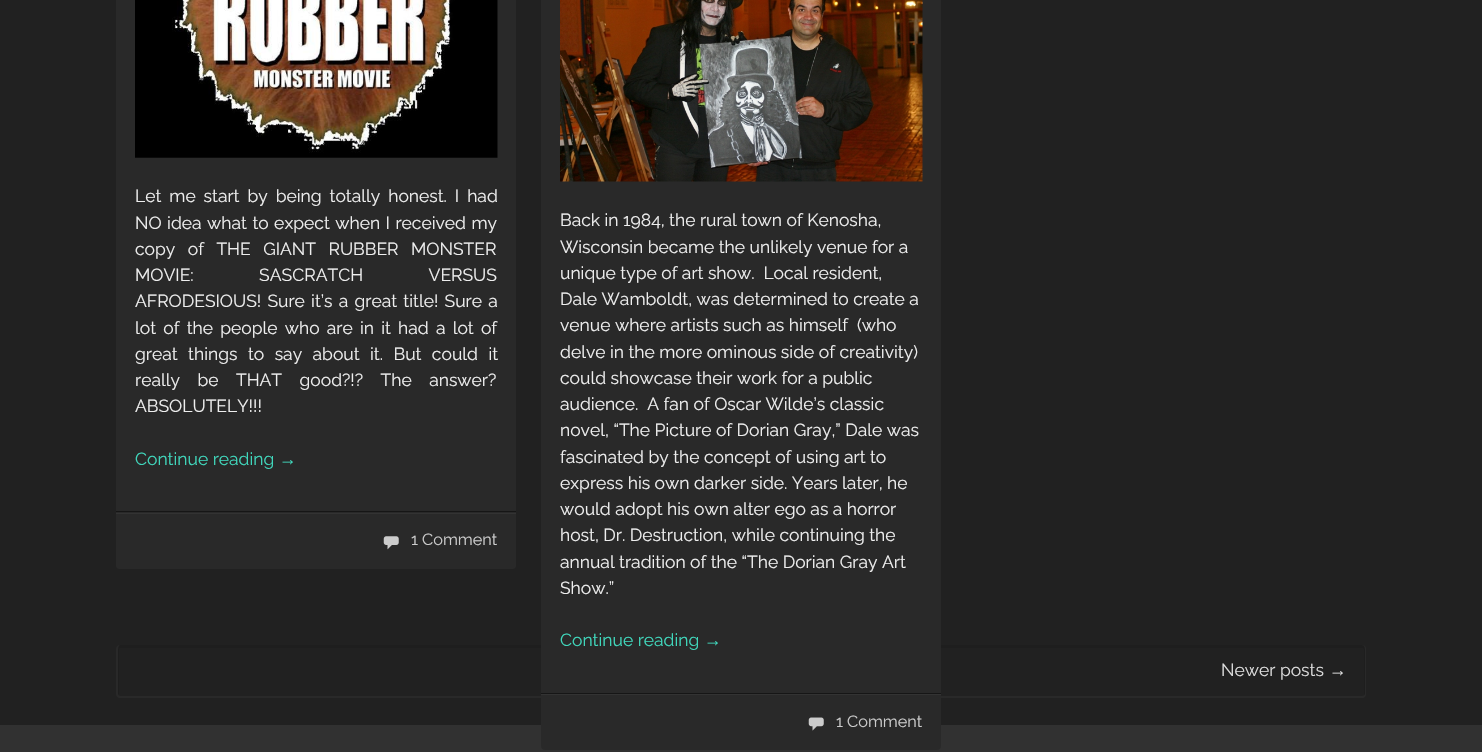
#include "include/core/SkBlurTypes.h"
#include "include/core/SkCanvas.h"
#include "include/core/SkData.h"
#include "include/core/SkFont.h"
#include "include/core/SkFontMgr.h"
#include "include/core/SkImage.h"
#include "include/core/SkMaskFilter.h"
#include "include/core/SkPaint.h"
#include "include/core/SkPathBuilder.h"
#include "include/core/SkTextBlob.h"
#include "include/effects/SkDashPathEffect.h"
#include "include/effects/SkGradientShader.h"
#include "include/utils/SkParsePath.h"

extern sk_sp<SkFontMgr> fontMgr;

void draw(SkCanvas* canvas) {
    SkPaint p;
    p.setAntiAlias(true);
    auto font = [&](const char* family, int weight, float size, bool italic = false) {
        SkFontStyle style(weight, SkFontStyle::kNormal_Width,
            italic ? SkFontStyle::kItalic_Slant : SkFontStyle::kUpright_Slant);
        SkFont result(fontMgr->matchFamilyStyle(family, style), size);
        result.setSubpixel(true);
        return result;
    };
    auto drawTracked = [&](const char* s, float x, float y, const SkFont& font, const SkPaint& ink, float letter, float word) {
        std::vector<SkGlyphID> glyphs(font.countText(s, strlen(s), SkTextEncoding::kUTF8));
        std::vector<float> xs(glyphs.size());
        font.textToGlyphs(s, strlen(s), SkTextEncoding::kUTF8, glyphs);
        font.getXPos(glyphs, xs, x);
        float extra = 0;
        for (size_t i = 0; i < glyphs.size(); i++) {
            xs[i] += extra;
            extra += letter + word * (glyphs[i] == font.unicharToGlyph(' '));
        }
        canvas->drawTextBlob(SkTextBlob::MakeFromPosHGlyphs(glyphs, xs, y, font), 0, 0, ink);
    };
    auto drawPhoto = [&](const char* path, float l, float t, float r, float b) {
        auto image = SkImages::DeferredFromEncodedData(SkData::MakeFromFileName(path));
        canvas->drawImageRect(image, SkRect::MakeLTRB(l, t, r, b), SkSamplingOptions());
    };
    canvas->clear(0xFF212121);
    p.setColor(0xFF292929);
    canvas->drawRoundRect(SkRect::MakeLTRB(116, -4, 516, 569), 4, 4, p);
    p.setColor(0xFF161616);
    canvas->drawRect(SkRect::MakeLTRB(116, 511, 516, 512), p);
    drawPhoto("media/1.png", 135, 0, 498, 158);
    auto font1 = font("Raleway", 400, 17.5f);
    p.setColor(0xFFEEEEEE);
    drawTracked("Let me start by being totally honest. I had", 135, 202, font1, p, 0, 3.5f);
    drawTracked("NO idea what to expect when I received my", 135, 229, font1, p, 0, 1);
    drawTracked("copy of THE GIANT RUBBER MONSTER", 135, 255, font1, p, 0, 8);
    drawTracked("MOVIE: SASCRATCH VERSUS", 135, 281, font1, p, 0, 61);
    drawTracked("AFRODESIOUS! Sure it’s a great title! Sure a", 135, 307, font1, p, 0, 1.75f);
    drawTracked("lot of the people who are in it had a lot of", 135, 334, font1, p, 0, 2.75f);
    drawTracked("great things to say about it. But could it", 135, 360, font1, p, 0, 6);
    drawTracked("really be THAT good?!? The answer?", 135, 386, font1, p, 0, 13);
    canvas->drawString("ABSOLUTELY!!!", 135, 412, font1, p);
    p.setColor(0xFF40D7BC);
    canvas->drawString("Continue reading", 135, 465, font1, p);
    auto font2 = font("Liberation Sans", 400, 17.5f);
    canvas->drawString("→", 279, 465, font2, p);
    p.setColor(0xFF333333);
    canvas->drawRect(SkRect::MakeLTRB(116, 513, 516, 514), p);
    drawPhoto("media/2.png", 383, 536, 399, 550);
    auto font3 = font("Raleway", 400, 16.25f);
    p.setColor(0xFFCCCCCC);
    canvas->drawString("1 Comment", 411, 545, font3, p);
    p.setColor(0xFF1E1E1E);
    canvas->drawPath(SkPathBuilder(SkPathFillType::kEvenOdd).moveTo(120, 645).cubicTo(119, 645, 118, 647, 118, 649).lineTo(118, 694).cubicTo(118, 695, 119, 696, 120, 696).lineTo(1362, 696).cubicTo(1364, 696, 1365, 695, 1365, 694).lineTo(1365, 649).cubicTo(1365, 647, 1364, 645, 1362, 645).close().moveTo(120, 648).cubicTo(119, 648, 119, 649, 119, 650).lineTo(119, 695).cubicTo(119, 696, 119, 696, 120, 696).lineTo(1362, 696).cubicTo(1363, 696, 1364, 696, 1364, 695).lineTo(1364, 650).cubicTo(1364, 649, 1363, 648, 1362, 648).close().detach(), p);
    p.setColor(0xFF292929);
    canvas->drawPath(SkPathBuilder(SkPathFillType::kEvenOdd).moveTo(120, 645).lineTo(1362, 645).cubicTo(1365, 645, 1366, 647, 1366, 649).lineTo(1366, 694).cubicTo(1366, 696, 1365, 698, 1362, 698).lineTo(120, 698).cubicTo(118, 698, 116, 696, 116, 694).lineTo(116, 649).cubicTo(116, 647, 118, 645, 120, 645).close().moveTo(120, 645).lineTo(1362, 645).cubicTo(1364, 645, 1365, 647, 1365, 649).lineTo(1365, 694).cubicTo(1365, 695, 1364, 696, 1362, 696).lineTo(120, 696).cubicTo(119, 696, 118, 695, 118, 694).lineTo(118, 649).cubicTo(118, 647, 119, 645, 120, 645).close().detach(), p);
    p.setColor(0xFF313131);
    canvas->drawRect(SkRect::MakeLTRB(0, 725, 1482, 752), p);
    p.setColor(0xFF292929);
    canvas->drawRoundRect(SkRect::MakeLTRB(541, -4, 941, 750), 4, 4, p);
    p.setColor(0xFF161616);
    canvas->drawRect(SkRect::MakeLTRB(541, 693, 941, 694), p);
    drawPhoto("media/3.png", 560, 0, 923, 182);
    p.setColor(0xFFEEEEEE);
    {
        const struct { const char* s; float x, y; } items[] = {
            {"Back in 1984, the rural town of Kenosha,", 560, 226},
            {"Wisconsin became the unlikely venue for a", 560, 253},
            {"unique type of art show.  Local resident,", 560, 279},
            {"Dale Wamboldt, was determined to create a", 560, 305},
            {"venue where artists such as himself  (who", 560, 331},
            {"delve in the more ominous side of creativity)", 560, 358},
            {"could showcase their work for a public", 560, 384},
            {"audience.  A fan of Oscar Wilde’s classic", 560, 410},
            {"novel, “The Picture of Dorian Gray,” Dale was", 560, 436},
            {"fascinated by the concept of using art to", 560, 463},
            {"express his own darker side. Years later, he", 560, 489},
            {"would adopt his own alter ego as a horror", 560, 515},
            {"host, Dr. Destruction, while continuing the", 560, 541},
            {"annual tradition of the “The Dorian Gray Art", 560, 568},
            {"Show.”", 560, 594},
        };
        for (auto [s, x, y] : items) {
            canvas->drawString(s, x, y, font1, p);
        }
    }
    p.setColor(0xFF40D7BC);
    canvas->drawString("Continue reading", 560, 646, font1, p);
    canvas->drawString("→", 704, 646, font2, p);
    p.setColor(0xFF333333);
    canvas->drawRect(SkRect::MakeLTRB(541, 694, 941, 695), p);
    drawPhoto("media/4.png", 808, 717, 824, 731);
    p.setColor(0xFFCCCCCC);
    canvas->drawString("1 Comment", 836, 727, font3, p);
    p.setColor(0xFFDDDDDD);
    canvas->drawString("Newer posts", 1221, 676, font1, p);
    canvas->drawString("→", 1329, 676, font2, p);
}
